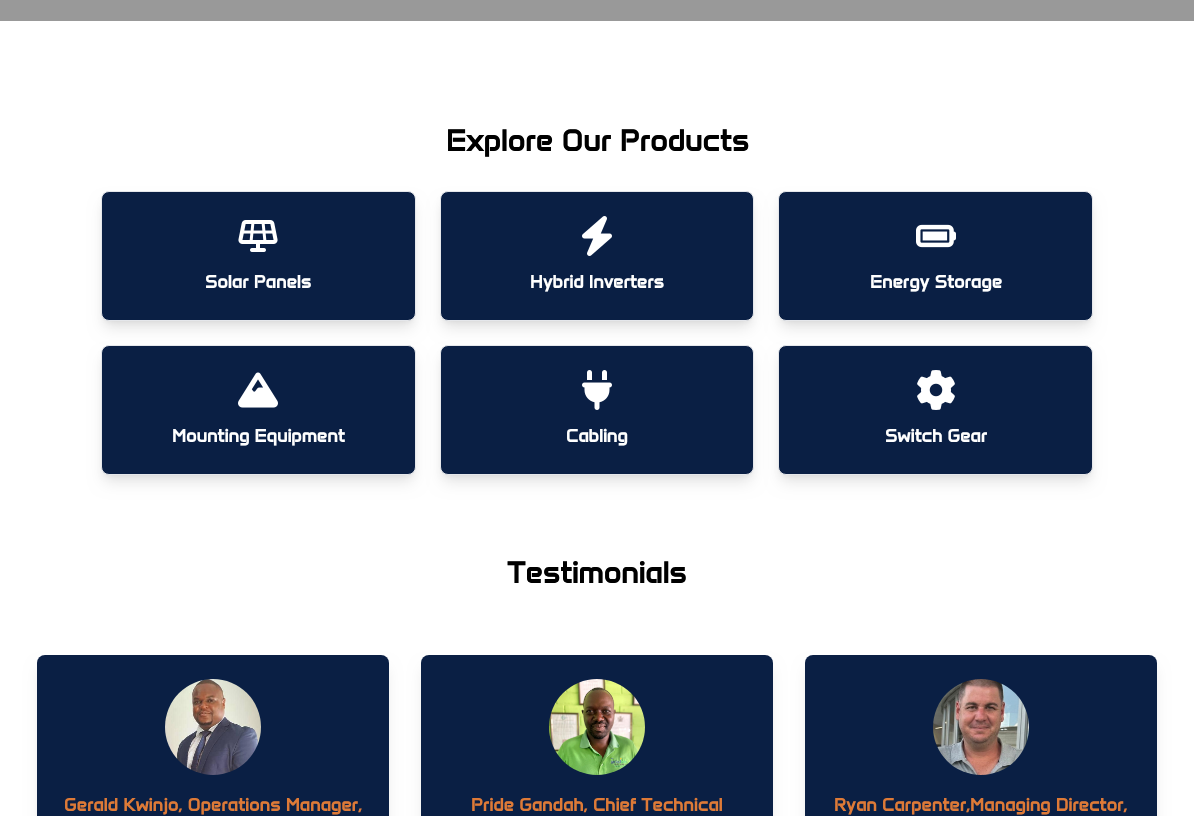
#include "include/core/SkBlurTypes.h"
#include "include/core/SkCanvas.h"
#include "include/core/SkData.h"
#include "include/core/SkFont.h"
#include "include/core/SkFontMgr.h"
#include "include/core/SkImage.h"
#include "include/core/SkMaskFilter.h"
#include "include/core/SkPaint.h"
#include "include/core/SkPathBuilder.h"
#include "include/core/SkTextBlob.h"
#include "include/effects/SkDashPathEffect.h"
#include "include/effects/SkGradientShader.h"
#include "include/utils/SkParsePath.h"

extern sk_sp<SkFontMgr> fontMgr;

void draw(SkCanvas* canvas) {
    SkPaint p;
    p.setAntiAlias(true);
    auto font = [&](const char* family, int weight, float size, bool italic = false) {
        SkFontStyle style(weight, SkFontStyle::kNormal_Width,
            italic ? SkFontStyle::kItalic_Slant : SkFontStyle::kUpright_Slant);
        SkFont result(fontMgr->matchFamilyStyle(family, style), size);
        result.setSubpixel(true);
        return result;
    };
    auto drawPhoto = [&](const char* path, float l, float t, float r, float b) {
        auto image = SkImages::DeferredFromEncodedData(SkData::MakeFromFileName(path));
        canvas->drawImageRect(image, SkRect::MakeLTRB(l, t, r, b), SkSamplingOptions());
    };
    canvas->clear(0xFFFFFFFF);
    p.setColor(0xFF999999);
    canvas->drawRect(SkRect::MakeLTRB(0, 0, 1194, 21), p);
    auto font1 = font("Anta", 700, 30);
    p.setColor(0xFF000000);
    canvas->drawString("Explore Our Products", 446, 151, font1, p);
    p.setColor(0x1A000000);
    p.setMaskFilter(SkMaskFilter::MakeBlur(kNormal_SkBlurStyle, 3));
    canvas->drawRoundRect(SkRect::MakeLTRB(105, 199, 412, 321), 4, 4, p);
    p.setMaskFilter(nullptr);
    p.setMaskFilter(SkMaskFilter::MakeBlur(kNormal_SkBlurStyle, 7.5f));
    canvas->drawRoundRect(SkRect::MakeLTRB(104, 204, 413, 328), 5, 5, p);
    p.setMaskFilter(nullptr);
    p.setColor(0xFF0A1F44);
    canvas->drawRoundRect(SkRect::MakeLTRB(101.5f, 191.5f, 415.5f, 320.5f), 7.5f, 7.5f, p);
    p.setStyle(SkPaint::kStroke_Style);
    p.setStrokeWidth(1);
    p.setColor(0xFFE5E7EB);
    canvas->drawRoundRect(SkRect::MakeLTRB(101.5f, 191.5f, 415.5f, 320.5f), 7.5f, 7.5f, p);
    drawPhoto("media/1.png", 238, 220, 278, 252);
    auto font2 = font("Anta", 700, 18);
    p.setStyle(SkPaint::kFill_Style);
    p.setColor(0xFFFFFFFF);
    canvas->drawString("Solar Panels", 205, 288, font2, p);
    p.setColor(0x1A000000);
    p.setMaskFilter(SkMaskFilter::MakeBlur(kNormal_SkBlurStyle, 3));
    canvas->drawRoundRect(SkRect::MakeLTRB(444, 199, 750, 321), 4, 4, p);
    p.setMaskFilter(nullptr);
    p.setMaskFilter(SkMaskFilter::MakeBlur(kNormal_SkBlurStyle, 7.5f));
    canvas->drawRoundRect(SkRect::MakeLTRB(443, 204, 751, 328), 5, 5, p);
    p.setMaskFilter(nullptr);
    p.setColor(0xFF0A1F44);
    canvas->drawRoundRect(SkRect::MakeLTRB(440.5f, 191.5f, 753.5f, 320.5f), 7.5f, 7.5f, p);
    p.setStyle(SkPaint::kStroke_Style);
    p.setColor(0xFFE5E7EB);
    canvas->drawRoundRect(SkRect::MakeLTRB(440.5f, 191.5f, 753.5f, 320.5f), 7.5f, 7.5f, p);
    drawPhoto("media/2.png", 582, 216, 612, 256);
    p.setStyle(SkPaint::kFill_Style);
    p.setColor(0xFFFFFFFF);
    canvas->drawString("Hybrid Inverters", 530, 288, font2, p);
    p.setColor(0x1A000000);
    p.setMaskFilter(SkMaskFilter::MakeBlur(kNormal_SkBlurStyle, 3));
    canvas->drawRoundRect(SkRect::MakeLTRB(782, 199, 1089, 321), 4, 4, p);
    p.setMaskFilter(nullptr);
    p.setMaskFilter(SkMaskFilter::MakeBlur(kNormal_SkBlurStyle, 7.5f));
    canvas->drawRoundRect(SkRect::MakeLTRB(781, 204, 1090, 328), 5, 5, p);
    p.setMaskFilter(nullptr);
    p.setColor(0xFF0A1F44);
    canvas->drawRoundRect(SkRect::MakeLTRB(778.5f, 191.5f, 1092.5f, 320.5f), 7.5f, 7.5f, p);
    p.setStyle(SkPaint::kStroke_Style);
    p.setColor(0xFFE5E7EB);
    canvas->drawRoundRect(SkRect::MakeLTRB(778.5f, 191.5f, 1092.5f, 320.5f), 7.5f, 7.5f, p);
    drawPhoto("media/3.png", 916, 224, 956, 248);
    p.setStyle(SkPaint::kFill_Style);
    p.setColor(0xFFFFFFFF);
    canvas->drawString("Energy Storage", 870, 288, font2, p);
    p.setColor(0x1A000000);
    p.setMaskFilter(SkMaskFilter::MakeBlur(kNormal_SkBlurStyle, 3));
    canvas->drawRoundRect(SkRect::MakeLTRB(105, 353, 412, 475), 4, 4, p);
    p.setMaskFilter(nullptr);
    p.setMaskFilter(SkMaskFilter::MakeBlur(kNormal_SkBlurStyle, 7.5f));
    canvas->drawRoundRect(SkRect::MakeLTRB(104, 358, 413, 482), 5, 5, p);
    p.setMaskFilter(nullptr);
    p.setColor(0xFF0A1F44);
    canvas->drawRoundRect(SkRect::MakeLTRB(101.5f, 345.5f, 415.5f, 474.5f), 7.5f, 7.5f, p);
    p.setStyle(SkPaint::kStroke_Style);
    p.setColor(0xFFE5E7EB);
    canvas->drawRoundRect(SkRect::MakeLTRB(101.5f, 345.5f, 415.5f, 474.5f), 7.5f, 7.5f, p);
    drawPhoto("media/4.png", 238, 372, 278, 408);
    p.setStyle(SkPaint::kFill_Style);
    p.setColor(0xFFFFFFFF);
    canvas->drawString("Mounting Equipment", 172, 442, font2, p);
    p.setColor(0x1A000000);
    p.setMaskFilter(SkMaskFilter::MakeBlur(kNormal_SkBlurStyle, 3));
    canvas->drawRoundRect(SkRect::MakeLTRB(444, 353, 750, 475), 4, 4, p);
    p.setMaskFilter(nullptr);
    p.setMaskFilter(SkMaskFilter::MakeBlur(kNormal_SkBlurStyle, 7.5f));
    canvas->drawRoundRect(SkRect::MakeLTRB(443, 358, 751, 482), 5, 5, p);
    p.setMaskFilter(nullptr);
    p.setColor(0xFF0A1F44);
    canvas->drawRoundRect(SkRect::MakeLTRB(440.5f, 345.5f, 753.5f, 474.5f), 7.5f, 7.5f, p);
    p.setStyle(SkPaint::kStroke_Style);
    p.setColor(0xFFE5E7EB);
    canvas->drawRoundRect(SkRect::MakeLTRB(440.5f, 345.5f, 753.5f, 474.5f), 7.5f, 7.5f, p);
    drawPhoto("media/5.png", 582, 370, 612, 410);
    p.setStyle(SkPaint::kFill_Style);
    p.setColor(0xFFFFFFFF);
    canvas->drawString("Cabling", 566, 442, font2, p);
    p.setColor(0x1A000000);
    p.setMaskFilter(SkMaskFilter::MakeBlur(kNormal_SkBlurStyle, 3));
    canvas->drawRoundRect(SkRect::MakeLTRB(782, 353, 1089, 475), 4, 4, p);
    p.setMaskFilter(nullptr);
    p.setMaskFilter(SkMaskFilter::MakeBlur(kNormal_SkBlurStyle, 7.5f));
    canvas->drawRoundRect(SkRect::MakeLTRB(781, 358, 1090, 482), 5, 5, p);
    p.setMaskFilter(nullptr);
    p.setColor(0xFF0A1F44);
    canvas->drawRoundRect(SkRect::MakeLTRB(778.5f, 345.5f, 1092.5f, 474.5f), 7.5f, 7.5f, p);
    p.setStyle(SkPaint::kStroke_Style);
    p.setColor(0xFFE5E7EB);
    canvas->drawRoundRect(SkRect::MakeLTRB(778.5f, 345.5f, 1092.5f, 474.5f), 7.5f, 7.5f, p);
    drawPhoto("media/6.png", 917, 370, 955, 410);
    p.setStyle(SkPaint::kFill_Style);
    p.setColor(0xFFFFFFFF);
    canvas->drawString("Switch Gear", 885, 442, font2, p);
    p.setColor(0xFF000000);
    canvas->drawString("Testimonials", 507, 583, font1, p);
    p.setColor(0x1A000000);
    p.setMaskFilter(SkMaskFilter::MakeBlur(kNormal_SkBlurStyle, 7.5f));
    canvas->drawRoundRect(SkRect::MakeLTRB(40, 668, 386, 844), 5, 5, p);
    p.setMaskFilter(nullptr);
    p.setColor(0xFF0A1F44);
    canvas->drawRoundRect(SkRect::MakeLTRB(37, 655, 389, 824), 8, 8, p);
    drawPhoto("media/7.png", 165, 679, 261, 775);
    p.setColor(0xFFDE7A37);
    canvas->drawString("Gerald Kwinjo, Operations Manager,", 64, 811, font2, p);
    p.setColor(0x1A000000);
    p.setMaskFilter(SkMaskFilter::MakeBlur(kNormal_SkBlurStyle, 7.5f));
    canvas->drawRoundRect(SkRect::MakeLTRB(424, 668, 770, 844), 5, 5, p);
    p.setMaskFilter(nullptr);
    p.setColor(0xFF0A1F44);
    canvas->drawRoundRect(SkRect::MakeLTRB(421, 655, 773, 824), 8, 8, p);
    drawPhoto("media/8.png", 549, 679, 645, 775);
    p.setColor(0xFFDE7A37);
    canvas->drawString("Pride Gandah, Chief Technical", 471, 811, font2, p);
    p.setColor(0x1A000000);
    p.setMaskFilter(SkMaskFilter::MakeBlur(kNormal_SkBlurStyle, 7.5f));
    canvas->drawRoundRect(SkRect::MakeLTRB(808, 668, 1154, 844), 5, 5, p);
    p.setMaskFilter(nullptr);
    p.setColor(0xFF0A1F44);
    canvas->drawRoundRect(SkRect::MakeLTRB(805, 655, 1157, 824), 8, 8, p);
    drawPhoto("media/9.png", 933, 679, 1029, 775);
    p.setColor(0xFFDE7A37);
    canvas->drawString("Ryan Carpenter,Managing Director,", 834, 811, font2, p);
}
